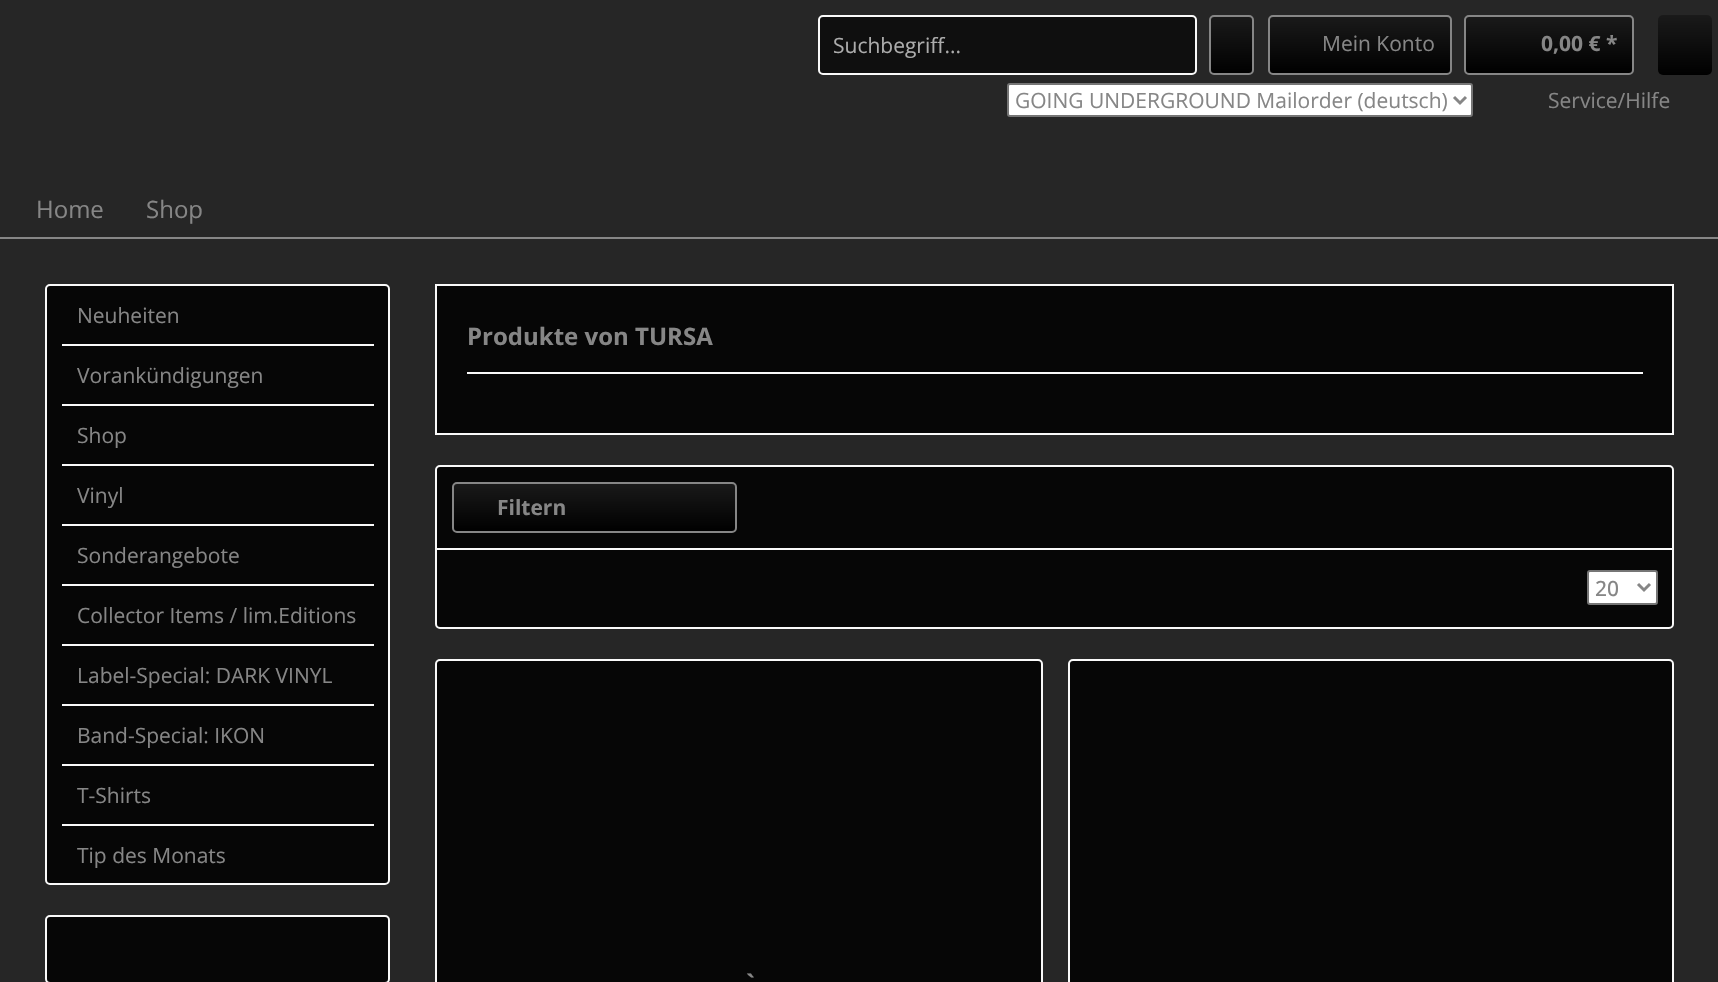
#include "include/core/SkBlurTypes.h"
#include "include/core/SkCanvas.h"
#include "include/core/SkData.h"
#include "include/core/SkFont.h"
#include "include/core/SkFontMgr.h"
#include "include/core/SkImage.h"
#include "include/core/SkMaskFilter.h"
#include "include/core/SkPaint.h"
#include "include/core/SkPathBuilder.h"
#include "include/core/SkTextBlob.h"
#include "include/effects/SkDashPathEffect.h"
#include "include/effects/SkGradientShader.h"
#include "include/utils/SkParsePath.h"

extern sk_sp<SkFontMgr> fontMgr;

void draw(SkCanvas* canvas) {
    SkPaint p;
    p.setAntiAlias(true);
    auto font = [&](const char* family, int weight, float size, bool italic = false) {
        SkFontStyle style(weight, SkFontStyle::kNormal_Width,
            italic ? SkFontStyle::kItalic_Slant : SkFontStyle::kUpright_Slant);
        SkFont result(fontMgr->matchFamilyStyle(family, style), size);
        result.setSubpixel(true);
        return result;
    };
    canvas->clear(0xFF262626);
    p.setColor(0xFF0F0F0F);
    canvas->drawRoundRect(SkRect::MakeLTRB(819, 16, 1196, 74), 4, 4, p);
    p.setStyle(SkPaint::kStroke_Style);
    p.setStrokeWidth(2);
    p.setColor(0xFFF9F9F9);
    canvas->drawRoundRect(SkRect::MakeLTRB(819, 16, 1196, 74), 4, 4, p);
    auto font1 = font("Open Sans", 400, 21);
    p.setStyle(SkPaint::kFill_Style);
    p.setColor(0xFFACACAC);
    canvas->drawString("Suchbegriff...", 833, 53, font1, p);
    {
        const SkColor colors[] = {0xFF1A1A1A, 0xFF000000};
        const float stops[] = {0, 1};
        const SkPoint ends[] = {{1232, 17}, {1232, 74}};
        p.setShader(SkGradientShader::MakeLinear(ends, colors, stops, 2, SkTileMode::kClamp));
        p.setAlpha(255);
    }
    canvas->drawRoundRect(SkRect::MakeLTRB(1211, 17, 1253, 74), 3, 3, p);
    p.setStyle(SkPaint::kStroke_Style);
    p.setShader(nullptr);
    p.setColor(0xFF868686);
    canvas->drawRoundRect(SkRect::MakeLTRB(1210, 16, 1253, 74), 4, 4, p);
    p.setStyle(SkPaint::kFill_Style);
    {
        const SkColor colors[] = {0xFF1A1A1A, 0xFF000000};
        const float stops[] = {0, 1};
        const SkPoint ends[] = {{1360, 16}, {1360, 74}};
        p.setShader(SkGradientShader::MakeLinear(ends, colors, stops, 2, SkTileMode::kClamp));
        p.setAlpha(255);
    }
    canvas->drawRoundRect(SkRect::MakeLTRB(1269, 17, 1451, 74), 3, 3, p);
    p.setStyle(SkPaint::kStroke_Style);
    p.setShader(nullptr);
    p.setColor(0xFF868686);
    canvas->drawRoundRect(SkRect::MakeLTRB(1269, 16, 1451, 74), 4, 4, p);
    p.setStyle(SkPaint::kFill_Style);
    canvas->drawString("Mein Konto", 1322, 51, font1, p);
    {
        const SkColor colors[] = {0xFF1A1A1A, 0xFF000000};
        const float stops[] = {0, 1};
        const SkPoint ends[] = {{1549, 16}, {1549, 74}};
        p.setShader(SkGradientShader::MakeLinear(ends, colors, stops, 2, SkTileMode::kClamp));
        p.setAlpha(255);
    }
    canvas->drawRoundRect(SkRect::MakeLTRB(1466, 17, 1632, 74), 3, 3, p);
    p.setStyle(SkPaint::kStroke_Style);
    p.setShader(nullptr);
    p.setColor(0xFF868686);
    canvas->drawRoundRect(SkRect::MakeLTRB(1465, 16, 1633, 74), 4, 4, p);
    auto font2 = font("Open Sans", 700, 21);
    p.setStyle(SkPaint::kFill_Style);
    canvas->drawString("0,00 € *", 1541, 51, font2, p);
    {
        const SkColor colors[] = {0xFF1A1A1A, 0xFF000000};
        const float stops[] = {0, 1};
        const SkPoint ends[] = {{1685, 15}, {1685, 75}};
        p.setShader(SkGradientShader::MakeLinear(ends, colors, stops, 2, SkTileMode::kClamp));
        p.setAlpha(255);
    }
    canvas->drawRoundRect(SkRect::MakeLTRB(1658, 15, 1712, 75), 5, 5, p);
    p.setShader(nullptr);
    p.setColor(0xFFFFFFFF);
    canvas->drawRoundRect(SkRect::MakeLTRB(1008, 84, 1472, 116), 2, 2, p);
    p.setStyle(SkPaint::kStroke_Style);
    p.setColor(0xFF767676);
    canvas->drawRoundRect(SkRect::MakeLTRB(1008, 84, 1472, 116), 2, 2, p);
    p.setStrokeWidth(3);
    p.setColor(0xFF868686);
    canvas->drawPath(SkPathBuilder().moveTo(1454, 97).lineTo(1460, 103).lineTo(1466, 97).detach(), p);
    p.setStyle(SkPaint::kFill_Style);
    canvas->drawString("GOING UNDERGROUND Mailorder (deutsch)", 1015, 108, font1, p);
    canvas->drawString("Service/Hilfe", 1548, 108, font1, p);
    canvas->drawRect(SkRect::MakeLTRB(0, 237, 1718, 239), p);
    auto font3 = font("Open Sans", 400, 24);
    canvas->drawString("Home", 36, 218, font3, p);
    canvas->drawString("Shop", 146, 218, font3, p);
    p.setColor(0xFF060606);
    canvas->drawRoundRect(SkRect::MakeLTRB(46, 285, 389, 884), 4, 4, p);
    p.setStyle(SkPaint::kStroke_Style);
    p.setStrokeWidth(2);
    p.setColor(0xFFF9F9F9);
    canvas->drawRoundRect(SkRect::MakeLTRB(46, 285, 389, 884), 4, 4, p);
    p.setStyle(SkPaint::kFill_Style);
    canvas->drawRect(SkRect::MakeLTRB(62, 344, 374, 346), p);
    p.setColor(0xFF868686);
    canvas->drawString("Neuheiten", 77, 323, font1, p);
    p.setColor(0xFFF9F9F9);
    canvas->drawRect(SkRect::MakeLTRB(62, 404, 374, 406), p);
    p.setColor(0xFF868686);
    canvas->drawString("Vorankündigungen", 77, 383, font1, p);
    p.setColor(0xFFF9F9F9);
    canvas->drawRect(SkRect::MakeLTRB(62, 464, 374, 466), p);
    p.setColor(0xFF868686);
    canvas->drawString("Shop", 77, 443, font1, p);
    p.setColor(0xFFF9F9F9);
    canvas->drawRect(SkRect::MakeLTRB(62, 524, 374, 526), p);
    p.setColor(0xFF868686);
    canvas->drawString("Vinyl", 77, 503, font1, p);
    p.setColor(0xFFF9F9F9);
    canvas->drawRect(SkRect::MakeLTRB(62, 584, 374, 586), p);
    p.setColor(0xFF868686);
    canvas->drawString("Sonderangebote", 77, 563, font1, p);
    p.setColor(0xFFF9F9F9);
    canvas->drawRect(SkRect::MakeLTRB(62, 644, 374, 646), p);
    p.setColor(0xFF868686);
    canvas->drawString("Collector Items / lim.Editions", 77, 623, font1, p);
    p.setColor(0xFFF9F9F9);
    canvas->drawRect(SkRect::MakeLTRB(62, 704, 374, 706), p);
    p.setColor(0xFF868686);
    canvas->drawString("Label-Special: DARK VINYL", 77, 683, font1, p);
    p.setColor(0xFFF9F9F9);
    canvas->drawRect(SkRect::MakeLTRB(62, 764, 374, 766), p);
    p.setColor(0xFF868686);
    canvas->drawString("Band-Special: IKON", 77, 743, font1, p);
    p.setColor(0xFFF9F9F9);
    canvas->drawRect(SkRect::MakeLTRB(62, 824, 374, 826), p);
    p.setColor(0xFF868686);
    canvas->drawString("T-Shirts", 77, 803, font1, p);
    canvas->drawString("Tip des Monats", 77, 863, font1, p);
    p.setColor(0xFF060606);
    canvas->drawRoundRect(SkRect::MakeLTRB(46, 916, 389, 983), 4, 4, p);
    p.setStyle(SkPaint::kStroke_Style);
    p.setColor(0xFFF9F9F9);
    canvas->drawRoundRect(SkRect::MakeLTRB(46, 916, 389, 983), 4, 4, p);
    p.setStyle(SkPaint::kFill_Style);
    p.setColor(0xFF060606);
    canvas->drawRect(SkRect::MakeLTRB(436, 285, 1673, 434), p);
    p.setStyle(SkPaint::kStroke_Style);
    p.setColor(0xFFF9F9F9);
    canvas->drawRect(SkRect::MakeLTRB(436, 285, 1673, 434), p);
    p.setStyle(SkPaint::kFill_Style);
    canvas->drawRect(SkRect::MakeLTRB(467, 372, 1643, 374), p);
    auto font4 = font("Open Sans", 700, 24);
    p.setColor(0xFF868686);
    canvas->drawString("Produkte von TURSA", 467, 345, font4, p);
    p.setColor(0xFF060606);
    canvas->drawRoundRect(SkRect::MakeLTRB(436, 466, 1673, 628), 4, 4, p);
    p.setStyle(SkPaint::kStroke_Style);
    p.setColor(0xFFF9F9F9);
    canvas->drawRoundRect(SkRect::MakeLTRB(436, 466, 1673, 628), 4, 4, p);
    p.setStyle(SkPaint::kFill_Style);
    {
        const SkColor colors[] = {0xFF1A1A1A, 0xFF000000};
        const float stops[] = {0, 1};
        const SkPoint ends[] = {{594, 483}, {594, 531}};
        p.setShader(SkGradientShader::MakeLinear(ends, colors, stops, 2, SkTileMode::kClamp));
        p.setAlpha(255);
    }
    canvas->drawRoundRect(SkRect::MakeLTRB(453, 483, 735, 531), 3, 3, p);
    p.setStyle(SkPaint::kStroke_Style);
    p.setShader(nullptr);
    p.setColor(0xFF868686);
    canvas->drawRoundRect(SkRect::MakeLTRB(453, 483, 736, 532), 4, 4, p);
    p.setStyle(SkPaint::kFill_Style);
    canvas->drawString("Filtern", 497, 515, font2, p);
    p.setColor(0xFFF9F9F9);
    canvas->drawRect(SkRect::MakeLTRB(437, 548, 1673, 550), p);
    p.setColor(0xFFFFFFFF);
    canvas->drawRoundRect(SkRect::MakeLTRB(1588, 571, 1657, 604), 2, 2, p);
    p.setStyle(SkPaint::kStroke_Style);
    p.setColor(0xFF767676);
    canvas->drawRoundRect(SkRect::MakeLTRB(1588, 571, 1657, 604), 2, 2, p);
    p.setStrokeWidth(3);
    p.setColor(0xFF868686);
    canvas->drawPath(SkPathBuilder().moveTo(1638, 584).lineTo(1644, 590).lineTo(1650, 584).detach(), p);
    auto font5 = font("Open Sans", 500, 21);
    p.setStyle(SkPaint::kFill_Style);
    canvas->drawString("20", 1595, 596, font5, p);
    p.setColor(0xFF060606);
    canvas->drawRoundRect(SkRect::MakeLTRB(437, 660, 1041, 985), 3, 3, p);
    p.setStyle(SkPaint::kStroke_Style);
    p.setStrokeWidth(2);
    p.setColor(0xFFF9F9F9);
    canvas->drawRoundRect(SkRect::MakeLTRB(436, 660, 1042, 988), 4, 4, p);
    p.setStyle(SkPaint::kFill_Style);
    p.setColor(0xFF868686);
    canvas->drawString("`", 746, 992, font4, p);
    p.setColor(0xFF060606);
    canvas->drawRoundRect(SkRect::MakeLTRB(1070, 660, 1673, 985), 3, 3, p);
    p.setStyle(SkPaint::kStroke_Style);
    p.setColor(0xFFF9F9F9);
    canvas->drawRoundRect(SkRect::MakeLTRB(1069, 660, 1673, 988), 4, 4, p);
}
